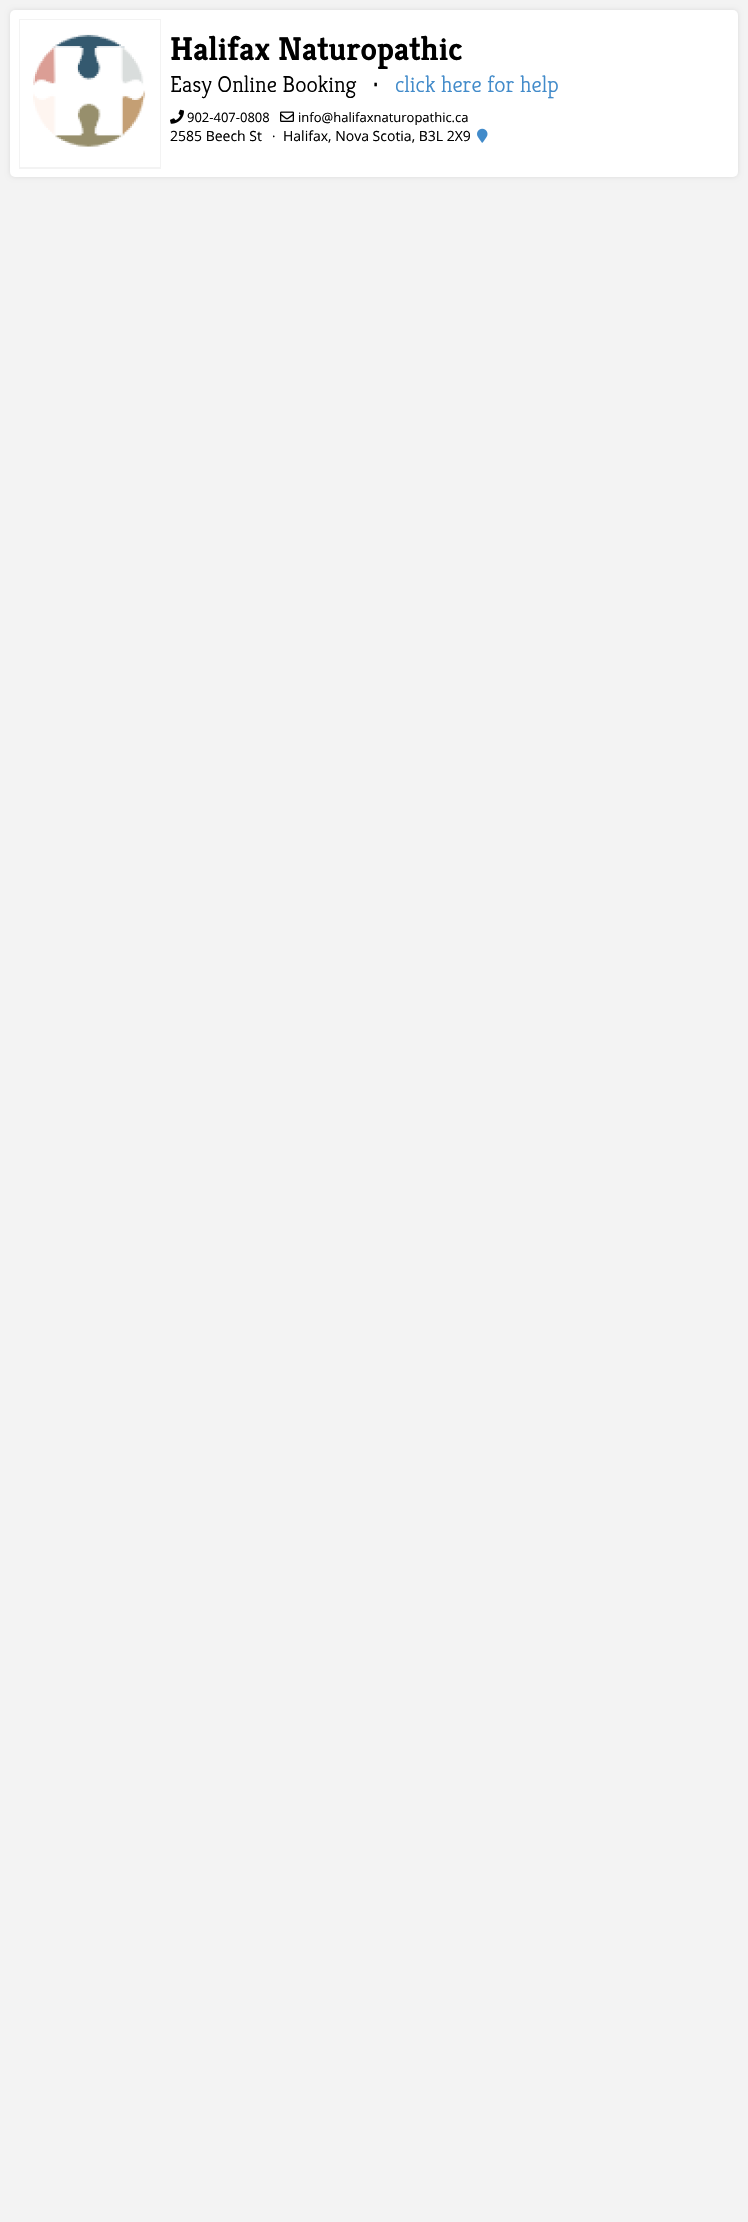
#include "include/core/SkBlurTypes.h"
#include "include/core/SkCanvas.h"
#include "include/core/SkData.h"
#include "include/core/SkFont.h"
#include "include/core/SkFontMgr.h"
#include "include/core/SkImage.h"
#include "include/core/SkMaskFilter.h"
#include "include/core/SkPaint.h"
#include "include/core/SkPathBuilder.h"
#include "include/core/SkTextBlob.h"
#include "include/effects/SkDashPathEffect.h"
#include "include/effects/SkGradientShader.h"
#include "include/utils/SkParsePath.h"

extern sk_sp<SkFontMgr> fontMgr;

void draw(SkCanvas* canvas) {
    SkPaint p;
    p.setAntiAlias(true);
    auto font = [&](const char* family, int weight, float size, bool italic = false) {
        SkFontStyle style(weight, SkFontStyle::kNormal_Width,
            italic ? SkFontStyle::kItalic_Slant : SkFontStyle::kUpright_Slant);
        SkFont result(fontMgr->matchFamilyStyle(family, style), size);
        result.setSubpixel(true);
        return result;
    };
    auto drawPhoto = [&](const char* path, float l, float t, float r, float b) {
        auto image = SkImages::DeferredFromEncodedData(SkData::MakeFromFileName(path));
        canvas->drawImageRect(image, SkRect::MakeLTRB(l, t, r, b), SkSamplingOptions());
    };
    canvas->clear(0xFFF3F3F3);
    p.setColor(0xFFDBDBDB);
    p.setMaskFilter(SkMaskFilter::MakeBlur(kNormal_SkBlurStyle, 2.5f));
    canvas->drawRoundRect(SkRect::MakeLTRB(10, 10, 738, 177), 5, 5, p);
    p.setMaskFilter(nullptr);
    p.setColor(0xFFFFFFFF);
    canvas->drawRoundRect(SkRect::MakeLTRB(10, 10, 738, 177), 5, 5, p);
    drawPhoto("media/1.png", 19, 19, 161, 169);
    auto font1 = font("Kreon", 700, 33);
    p.setColor(0xFF000000);
    canvas->drawString("Halifax Naturopathic", 170, 60, font1, p);
    auto font2 = font("Kreon", 300, 23);
    canvas->drawString("Easy Online Booking   ·", 170, 92, font2, p);
    p.setColor(0xFF428BCA);
    canvas->drawString("click here for help", 395, 92, font2, p);
    drawPhoto("media/2.png", 170, 109, 184, 124);
    auto font3 = font("Open Sans", 400, 13);
    p.setColor(0xFF000000);
    canvas->drawString("902-407-0808", 187, 122, font3, p);
    drawPhoto("media/3.png", 280, 111, 294, 122);
    canvas->drawString("info@halifaxnaturopathic.ca", 298, 122, font3, p);
    auto font4 = font("Open Sans", 400, 14);
    canvas->drawString("2585 Beech St", 170, 141, font4, p);
    canvas->drawString("·", 272, 141, font3, p);
    canvas->drawString("Halifax, Nova Scotia, B3L 2X9", 283, 141, font4, p);
    drawPhoto("media/4.png", 477, 128, 488, 143);
}
